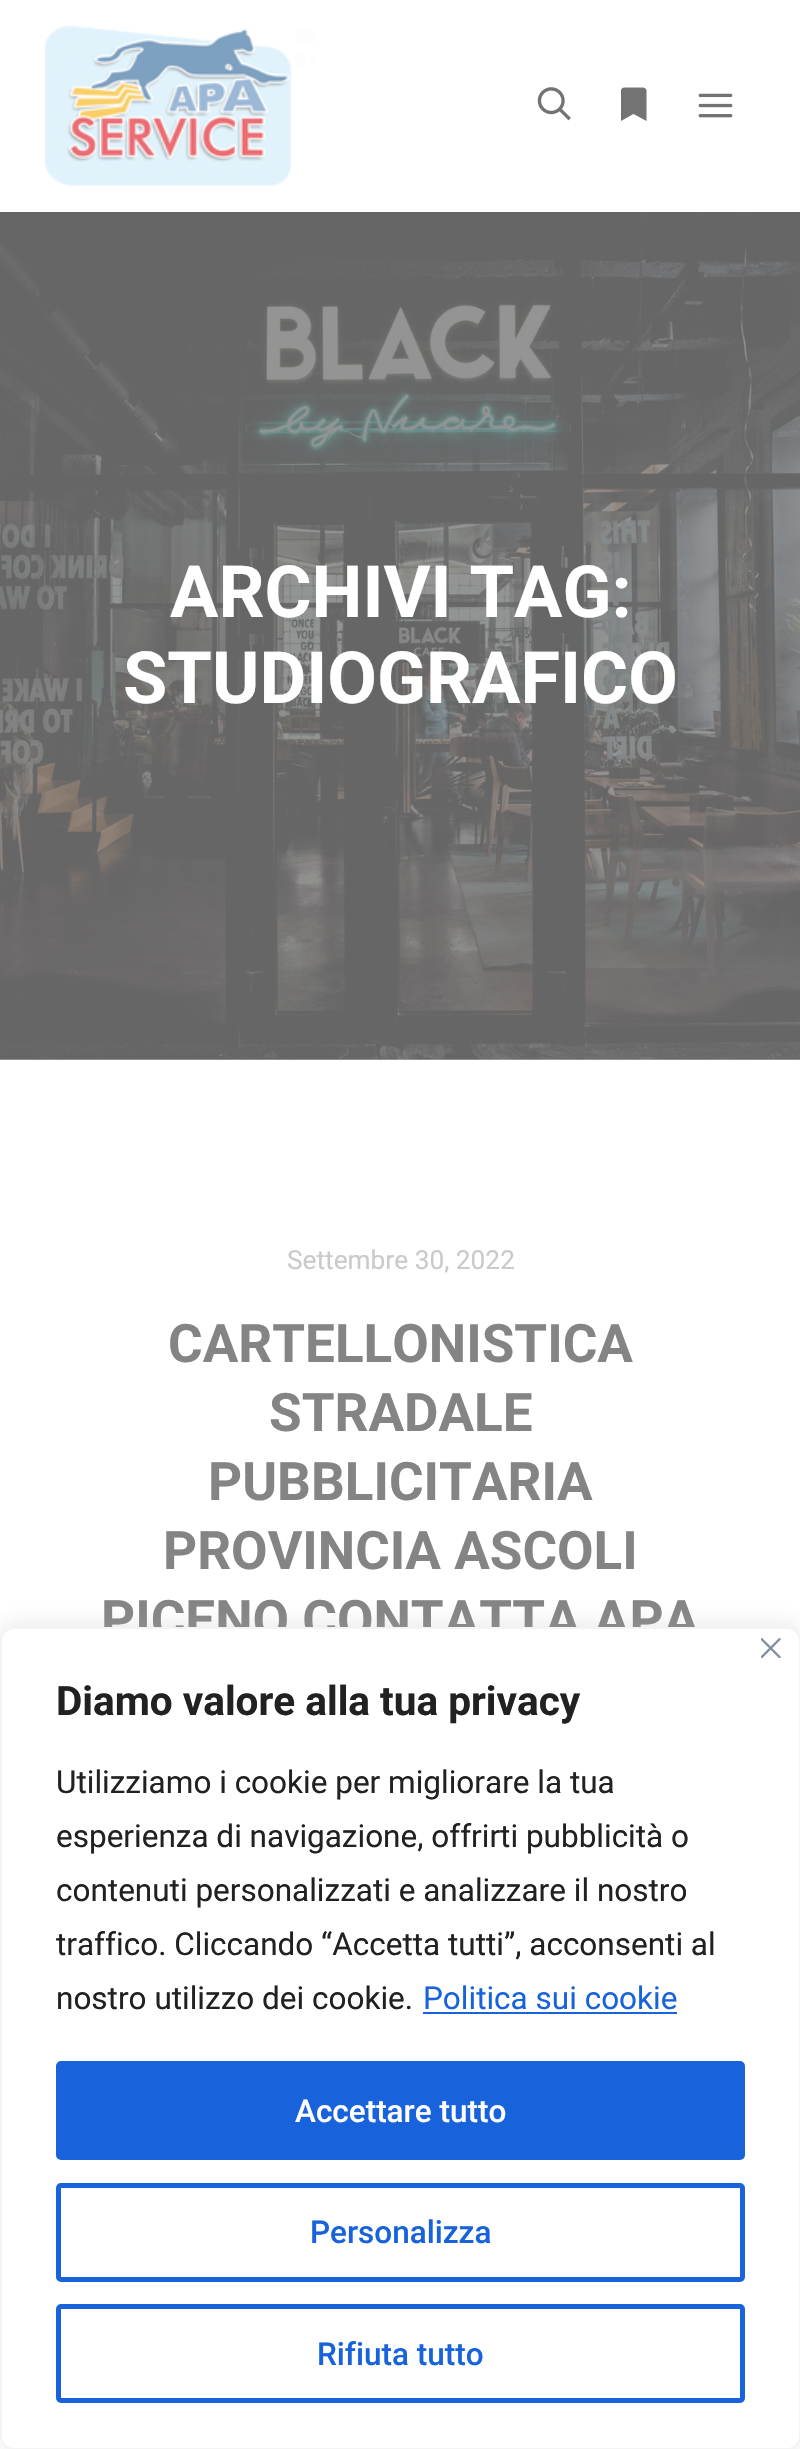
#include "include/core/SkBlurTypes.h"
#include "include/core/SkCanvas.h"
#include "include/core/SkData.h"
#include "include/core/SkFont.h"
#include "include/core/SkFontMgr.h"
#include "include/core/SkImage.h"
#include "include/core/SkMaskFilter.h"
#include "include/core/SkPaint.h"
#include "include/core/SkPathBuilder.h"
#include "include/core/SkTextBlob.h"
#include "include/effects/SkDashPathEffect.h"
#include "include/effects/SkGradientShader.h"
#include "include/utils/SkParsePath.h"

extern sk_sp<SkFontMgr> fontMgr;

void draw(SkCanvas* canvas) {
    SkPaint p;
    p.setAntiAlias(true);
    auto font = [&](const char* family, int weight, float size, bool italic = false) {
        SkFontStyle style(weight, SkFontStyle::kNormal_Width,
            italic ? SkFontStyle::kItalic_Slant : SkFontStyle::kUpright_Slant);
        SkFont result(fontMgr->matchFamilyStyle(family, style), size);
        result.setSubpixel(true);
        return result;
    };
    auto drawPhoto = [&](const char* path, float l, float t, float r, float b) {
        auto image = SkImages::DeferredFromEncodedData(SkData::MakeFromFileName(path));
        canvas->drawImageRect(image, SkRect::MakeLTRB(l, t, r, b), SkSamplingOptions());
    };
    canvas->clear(0xFFFFFFFF);
    drawPhoto("media/1.png", 45, 25, 315, 186);
    drawPhoto("media/2.png", 537, 87, 571, 121);
    p.setColor(0xFF737373);
    canvas->drawPath(SkPathBuilder().moveTo(621, 121).lineTo(621, 90).cubicTo(621.5f, 87, 625, 87.5f, 627.5f, 87.5f).lineTo(640, 87.5f).cubicTo(642, 87.5f, 645.5f, 87, 646.5f, 90).lineTo(646.5f, 121).lineTo(633.5f, 114).close().detach(), p);
    drawPhoto("media/3.png", 698, 93, 733, 118);
    drawPhoto("media/4.png", 0, 212, 800, 1060);
    auto font1 = font("Roboto", 700, 72);
    p.setColor(0xFFFFFFFF);
    canvas->drawString("ARCHIVI TAG:", 170, 617, font1, p);
    canvas->drawString("STUDIOGRAFICO", 123, 703, font1, p);
    auto font2 = font("Roboto", 400, 26.25f);
    p.setColor(0xFFCACACA);
    canvas->drawString("Settembre 30, 2022", 287, 1269, font2, p);
    auto font3 = font("Roboto", 700, 53);
    p.setColor(0xFF848484);
    {
        const struct { const char* s; float x, y; } items[] = {
            {"CARTELLONISTICA", 168, 1362},
            {"STRADALE", 269, 1431},
            {"PUBBLICITARIA", 208, 1500},
            {"PROVINCIA ASCOLI", 163, 1569},
            {"PICENO CONTATTA APA", 101, 1638},
        };
        for (auto [s, x, y] : items) {
            canvas->drawString(s, x, y, font3, p);
        }
    }
    p.setColor(0x4DACABAB);
    p.setMaskFilter(SkMaskFilter::MakeBlur(kNormal_SkBlurStyle, 11));
    canvas->drawRoundRect(SkRect::MakeLTRB(0, 1625, 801, 2448), 14, 14, p);
    p.setMaskFilter(nullptr);
    p.setColor(0xFFFFFFFF);
    canvas->drawRoundRect(SkRect::MakeLTRB(1, 1628, 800, 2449), 13, 13, p);
    p.setStyle(SkPaint::kStroke_Style);
    p.setStrokeWidth(2);
    p.setColor(0xFFF4F4F4);
    canvas->drawRoundRect(SkRect::MakeLTRB(1, 1628, 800, 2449), 13, 13, p);
    drawPhoto("media/5.png", 761, 1638, 781, 1658);
    auto font4 = font("Roboto", 700, 40.5f);
    p.setStyle(SkPaint::kFill_Style);
    p.setColor(0xFF212121);
    canvas->drawString("Diamo valore alla tua privacy", 56, 1715, font4, p);
    auto font5 = font("Roboto", 400, 31.5f);
    {
        const struct { const char* s; float x, y; } items[] = {
            {"Utilizziamo i cookie per migliorare la tua", 56, 1793},
            {"esperienza di navigazione, offrirti pubblicità o", 56, 1847},
            {"contenuti personalizzati e analizzare il nostro", 56, 1901},
            {"traffico. Cliccando “Accetta tutti”, acconsenti al", 56, 1955},
            {"nostro utilizzo dei cookie.", 56, 2009},
        };
        for (auto [s, x, y] : items) {
            canvas->drawString(s, x, y, font5, p);
        }
    }
    p.setColor(0xFF1863DC);
    canvas->drawString("Politica sui cookie", 423, 2009, font5, p);
    canvas->drawRect(SkRect::MakeLTRB(423, 2012, 677, 2014), p);
    canvas->drawRoundRect(SkRect::MakeLTRB(58.5f, 2063.5f, 742.5f, 2157.5f), 2.5f, 2.5f, p);
    p.setStyle(SkPaint::kStroke_Style);
    p.setStrokeWidth(5);
    canvas->drawRoundRect(SkRect::MakeLTRB(58.5f, 2063.5f, 742.5f, 2157.5f), 2.5f, 2.5f, p);
    auto font6 = font("Roboto", 500, 31.5f);
    p.setStyle(SkPaint::kFill_Style);
    p.setColor(0xFFFFFFFF);
    canvas->drawString("Accettare tutto", 295, 2122, font6, p);
    p.setStyle(SkPaint::kStroke_Style);
    p.setColor(0xFF1863DC);
    canvas->drawRoundRect(SkRect::MakeLTRB(58.5f, 2185.5f, 742.5f, 2279.5f), 2.5f, 2.5f, p);
    p.setStyle(SkPaint::kFill_Style);
    canvas->drawString("Personalizza", 310, 2243, font6, p);
    p.setStyle(SkPaint::kStroke_Style);
    canvas->drawRoundRect(SkRect::MakeLTRB(58.5f, 2306.5f, 742.5f, 2400.5f), 2.5f, 2.5f, p);
    p.setStyle(SkPaint::kFill_Style);
    canvas->drawString("Rifiuta tutto", 317, 2365, font6, p);
}
